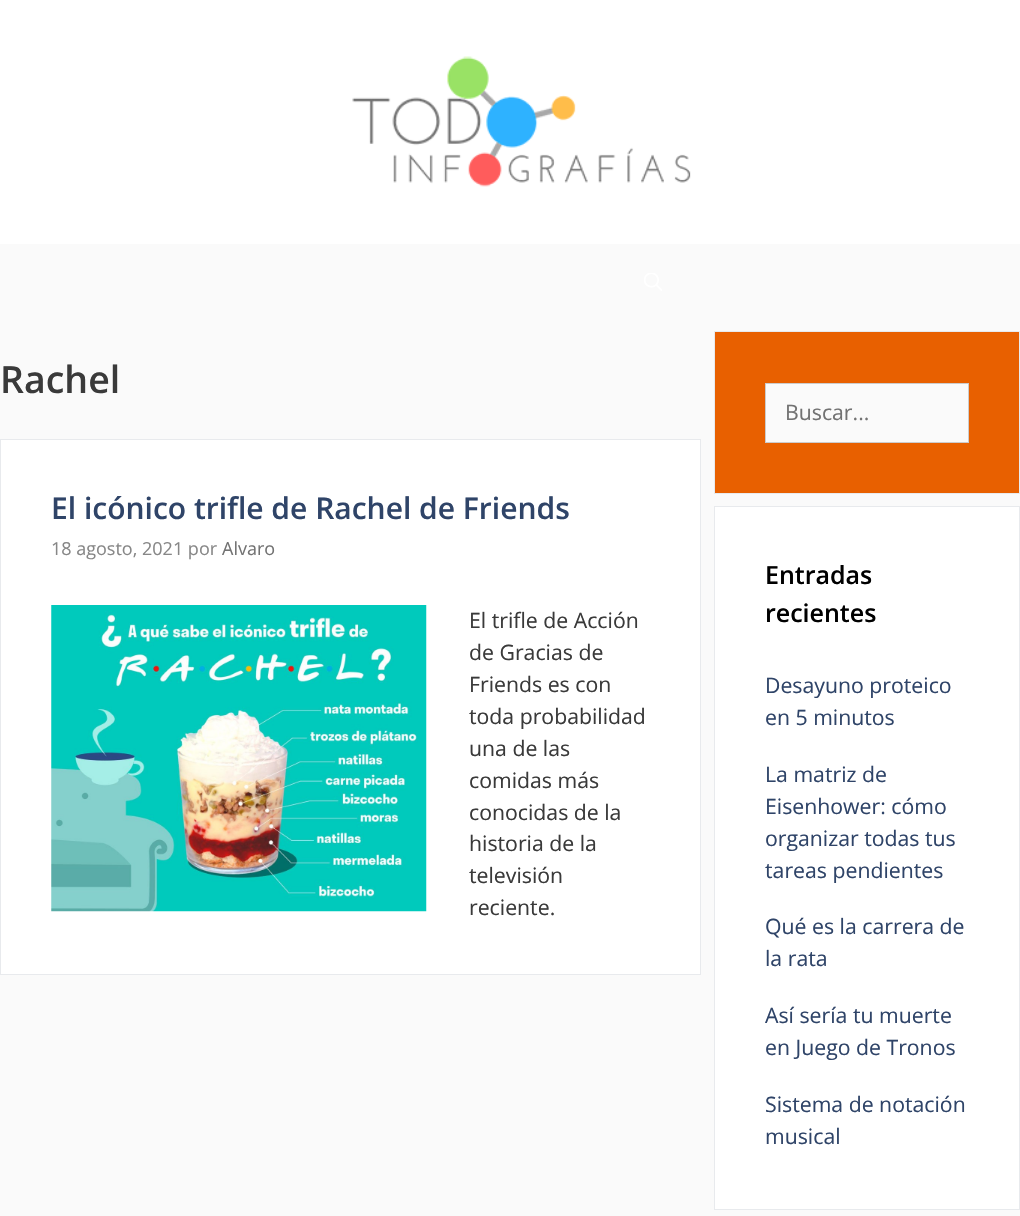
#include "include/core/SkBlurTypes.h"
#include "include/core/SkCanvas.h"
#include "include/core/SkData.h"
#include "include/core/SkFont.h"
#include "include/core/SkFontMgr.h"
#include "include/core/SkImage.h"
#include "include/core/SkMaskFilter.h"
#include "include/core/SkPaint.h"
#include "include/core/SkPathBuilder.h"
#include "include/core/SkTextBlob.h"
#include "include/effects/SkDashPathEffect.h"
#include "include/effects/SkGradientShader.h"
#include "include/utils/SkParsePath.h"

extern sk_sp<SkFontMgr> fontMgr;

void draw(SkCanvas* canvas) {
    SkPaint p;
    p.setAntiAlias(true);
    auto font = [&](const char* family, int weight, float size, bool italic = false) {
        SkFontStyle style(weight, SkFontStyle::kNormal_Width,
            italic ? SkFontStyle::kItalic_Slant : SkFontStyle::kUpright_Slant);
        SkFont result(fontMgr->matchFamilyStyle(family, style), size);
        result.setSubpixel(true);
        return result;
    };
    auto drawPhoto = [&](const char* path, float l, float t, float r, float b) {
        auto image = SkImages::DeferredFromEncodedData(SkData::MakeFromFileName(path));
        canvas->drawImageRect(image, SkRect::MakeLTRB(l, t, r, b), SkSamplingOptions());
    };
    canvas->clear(0xFFFAFAFA);
    p.setColor(0xFFFFFFFF);
    canvas->drawRect(SkRect::MakeLTRB(0, 0, 1020, 244), p);
    drawPhoto("media/1.png", 352, 56, 691, 187);
    drawPhoto("media/2.png", 644, 273, 662, 291);
    auto font1 = font("Open Sans", 600, 37.5f);
    p.setColor(0xFF3A3A3A);
    canvas->drawString("Rachel", 0, 393, font1, p);
    p.setColor(0xFFFFFFFF);
    canvas->drawRect(SkRect::MakeLTRB(0.5f, 439.5f, 700.5f, 974.5f), p);
    p.setStyle(SkPaint::kStroke_Style);
    p.setStrokeWidth(1);
    p.setColor(0xFFE8EAED);
    canvas->drawRect(SkRect::MakeLTRB(0.5f, 439.5f, 700.5f, 974.5f), p);
    auto font2 = font("Open Sans", 600, 30);
    p.setStyle(SkPaint::kFill_Style);
    p.setColor(0xFF2F4468);
    canvas->drawString("El icónico trifle de Rachel de Friends", 51, 519, font2, p);
    auto font3 = font("Open Sans", 400, 18);
    p.setColor(0xFF878787);
    canvas->drawString("18 agosto, 2021 por", 51, 555, font3, p);
    p.setColor(0xFF727272);
    canvas->drawString("Alvaro", 222, 555, font3, p);
    drawPhoto("media/3.png", 51, 605, 427, 912);
    auto font4 = font("Open Sans", 400, 21.25f);
    p.setColor(0xFF3A3A3A);
    {
        const struct { const char* s; float x, y; } items[] = {
            {"El trifle de Acción", 469, 628},
            {"de Gracias de", 469, 660},
            {"Friends es con", 469, 692},
            {"toda probabilidad", 469, 724},
            {"una de las", 469, 756},
            {"comidas más", 469, 788},
            {"conocidas de la", 469, 820},
            {"historia de la", 469, 851},
            {"televisión", 469, 883},
            {"reciente.", 469, 915},
        };
        for (auto [s, x, y] : items) {
            canvas->drawString(s, x, y, font4, p);
        }
    }
    p.setColor(0xFFE86000);
    canvas->drawRect(SkRect::MakeLTRB(714.5f, 331.5f, 1019.5f, 493.5f), p);
    p.setStyle(SkPaint::kStroke_Style);
    p.setColor(0xFFE8EAED);
    canvas->drawRect(SkRect::MakeLTRB(714.5f, 331.5f, 1019.5f, 493.5f), p);
    p.setStyle(SkPaint::kFill_Style);
    p.setColor(0xFFFAFAFA);
    canvas->drawRect(SkRect::MakeLTRB(765.5f, 383.5f, 968.5f, 442.5f), p);
    p.setStyle(SkPaint::kStroke_Style);
    p.setColor(0xFFCCCCCC);
    canvas->drawRect(SkRect::MakeLTRB(765.5f, 383.5f, 968.5f, 442.5f), p);
    p.setStyle(SkPaint::kFill_Style);
    p.setColor(0xFF727272);
    canvas->drawString("Buscar...", 785, 420, font4, p);
    p.setColor(0xFFFFFFFF);
    canvas->drawRect(SkRect::MakeLTRB(714.5f, 506.5f, 1019.5f, 1209.5f), p);
    p.setStyle(SkPaint::kStroke_Style);
    p.setColor(0xFFE8EAED);
    canvas->drawRect(SkRect::MakeLTRB(714.5f, 506.5f, 1019.5f, 1209.5f), p);
    auto font5 = font("Open Sans", 600, 25);
    p.setStyle(SkPaint::kFill_Style);
    p.setColor(0xFF000000);
    canvas->drawString("Entradas", 765, 584, font5, p);
    canvas->drawString("recientes", 765, 622, font5, p);
    p.setColor(0xFF2F4468);
    {
        const struct { const char* s; float x, y; } items[] = {
            {"Desayuno proteico", 765, 693},
            {"en 5 minutos", 765, 725},
            {"La matriz de", 765, 782},
            {"Eisenhower: cómo", 765, 814},
            {"organizar todas tus", 765, 846},
            {"tareas pendientes", 765, 878},
            {"Qué es la carrera de", 765, 934},
            {"la rata", 765, 966},
            {"Así sería tu muerte", 765, 1023},
            {"en Juego de Tronos", 765, 1055},
            {"Sistema de notación", 765, 1112},
            {"musical", 765, 1144},
        };
        for (auto [s, x, y] : items) {
            canvas->drawString(s, x, y, font4, p);
        }
    }
}
